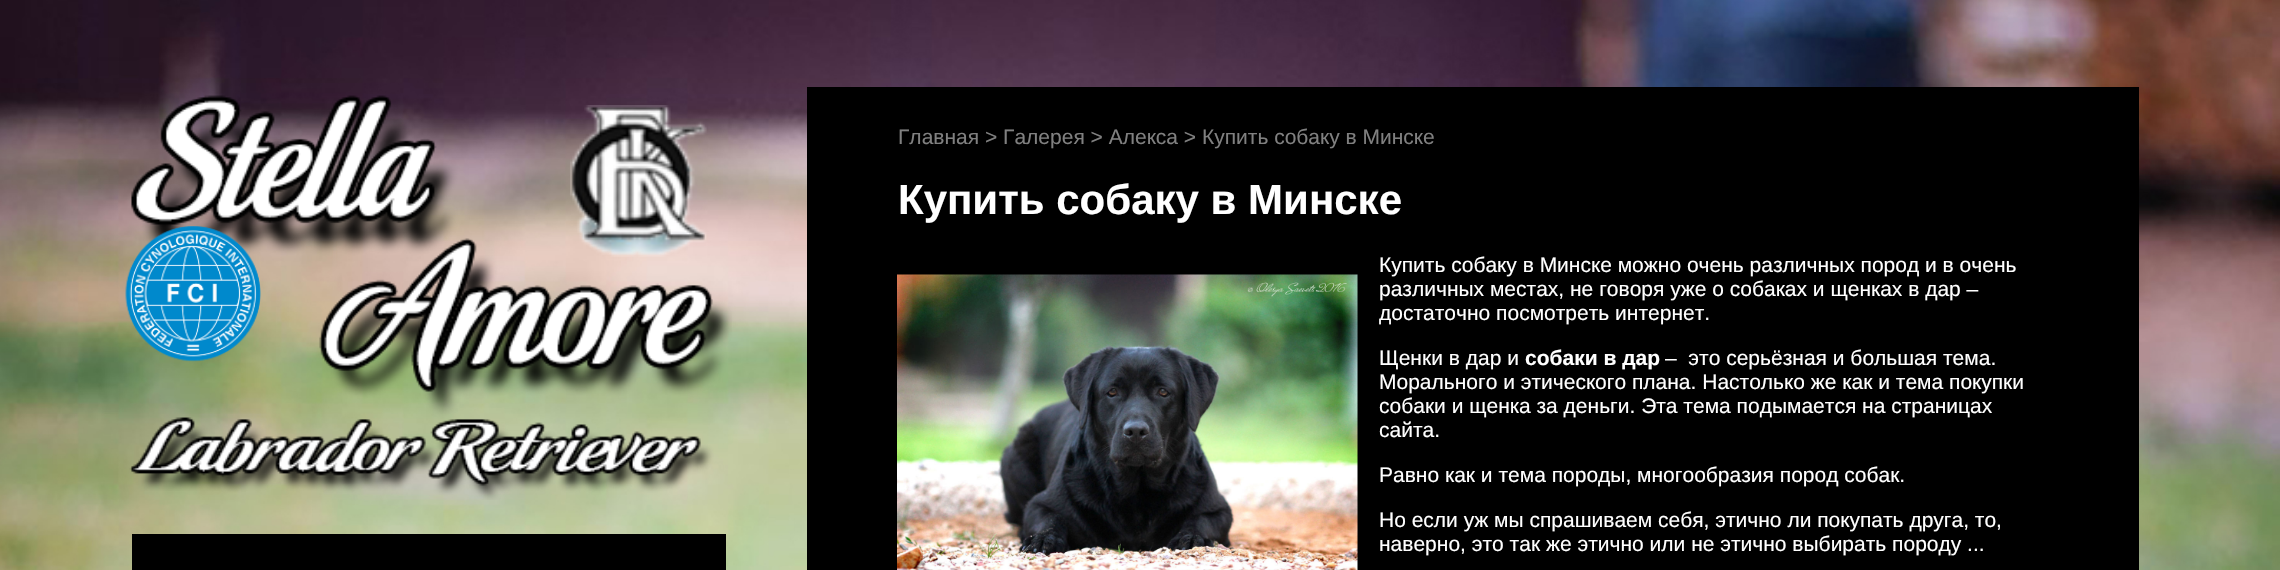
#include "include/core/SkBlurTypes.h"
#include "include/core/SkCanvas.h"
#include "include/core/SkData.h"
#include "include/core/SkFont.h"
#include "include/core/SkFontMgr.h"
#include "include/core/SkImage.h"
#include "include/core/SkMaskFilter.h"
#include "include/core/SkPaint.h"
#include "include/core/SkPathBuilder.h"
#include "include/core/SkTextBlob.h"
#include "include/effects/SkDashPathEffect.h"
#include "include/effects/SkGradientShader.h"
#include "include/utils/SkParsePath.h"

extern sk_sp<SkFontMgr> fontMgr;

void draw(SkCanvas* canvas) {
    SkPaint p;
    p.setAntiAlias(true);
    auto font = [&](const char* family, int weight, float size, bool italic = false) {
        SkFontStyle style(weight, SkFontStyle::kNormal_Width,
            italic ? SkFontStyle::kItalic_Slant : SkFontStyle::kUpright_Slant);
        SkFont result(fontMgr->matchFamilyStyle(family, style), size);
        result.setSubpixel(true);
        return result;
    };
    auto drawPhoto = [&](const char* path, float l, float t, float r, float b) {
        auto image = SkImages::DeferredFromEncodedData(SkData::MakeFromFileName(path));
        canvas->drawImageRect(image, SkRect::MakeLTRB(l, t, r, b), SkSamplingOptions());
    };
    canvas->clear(0xFFFFFFFF);
    drawPhoto("media/1.png", 0, 0, 2280, 570);
    drawPhoto("media/2.png", 129, 95, 732, 500);
    drawPhoto("media/3.png", 570, 105, 707, 257);
    drawPhoto("media/4.png", 125, 226, 261, 362);
    p.setColor(0xFF000000);
    canvas->drawRect(SkRect::MakeLTRB(132, 534, 726, 570), p);
    canvas->drawRect(SkRect::MakeLTRB(807, 87, 2139, 570), p);
    auto font1 = font("Liberation Sans", 400, 21);
    p.setColor(0xFF808080);
    canvas->drawString("Главная > Галерея > Алекса > Купить собаку в Минске", 898, 144, font1, p);
    auto font2 = font("Liberation Sans", 700, 42);
    p.setColor(0xFFFFFFFF);
    canvas->drawString("Купить собаку в Минске", 898, 214, font2, p);
    drawPhoto("media/5.png", 897, 274, 1358, 570);
    {
        const struct { const char* s; float x, y; } items[] = {
            {"Купить собаку в Минске можно очень различных пород и в очень", 1379, 272},
            {"различных местах, не говоря уже о собаках и щенках в дар –", 1379, 296},
            {"достаточно посмотреть интернет.", 1379, 320},
            {"Щенки в дар и", 1379, 365},
        };
        for (auto [s, x, y] : items) {
            canvas->drawString(s, x, y, font1, p);
        }
    }
    auto font3 = font("Liberation Sans", 700, 21);
    canvas->drawString("собаки в дар", 1525, 365, font3, p);
    {
        const struct { const char* s; float x, y; } items[] = {
            {"–  это серьёзная и большая тема.", 1665, 365},
            {"Морального и этического плана. Настолько же как и тема покупки", 1379, 389},
            {"собаки и щенка за деньги. Эта тема подымается на страницах", 1379, 413},
            {"сайта.", 1379, 437},
            {"Равно как и тема породы, многообразия пород собак.", 1379, 482},
            {"Но если уж мы спрашиваем себя, этично ли покупать друга, то,", 1379, 527},
            {"наверно, это так же этично или не этично выбирать породу ...", 1379, 551},
        };
        for (auto [s, x, y] : items) {
            canvas->drawString(s, x, y, font1, p);
        }
    }
}
